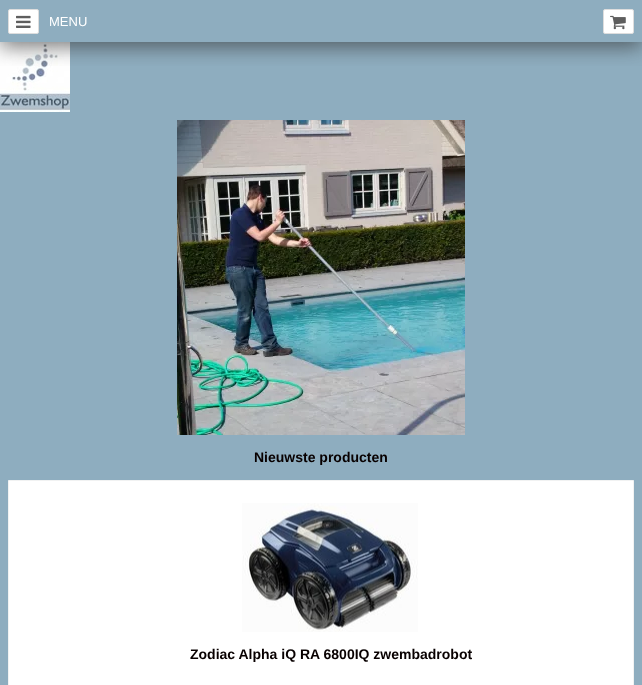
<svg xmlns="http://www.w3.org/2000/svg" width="642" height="685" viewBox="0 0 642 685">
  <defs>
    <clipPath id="clip1"><path d="M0 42h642v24H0z"/></clipPath>
  </defs>
  <rect width="100%" height="100%" fill="#8eadbf"/>
  <image x="0" y="42" width="70" height="70" href="img/3.png"/>
  <g clip-path="url(#clip1)">
    <path d="M0 5h642v42H0z" fill="#323232a6" filter="blur(10px)"/>
  </g>
  <rect x="8.5" y="9.5" width="30" height="24" rx="1.5" fill="#fff" stroke="#ddd"/>
  <image x="16" y="15" width="15" height="13" href="img/1.png"/>
  <rect x="603.5" y="9.5" width="30" height="24" rx="1.5" fill="#fff" stroke="#ddd"/>
  <image x="610" y="15" width="16" height="15" href="img/2.png"/>
  <image x="177" y="120" width="288" height="315" href="img/4.png"/>
  <path d="M8.5 480.5h625v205H8.5z" fill="#fff" stroke="#f1f2f2"/>
  <image x="242" y="503" width="176" height="129" href="img/5.png"/>
  <text x="49" y="26" font-family="Liberation Sans" font-size="13" fill="#fff">MENU</text>
  <g font-family="Liberation Sans" font-size="14" font-weight="bold" fill="#080000">
    <text x="254" y="462">Nieuwste producten</text>
    <text x="190" y="659">Zodiac Alpha iQ RA 6800IQ zwembadrobot</text>
  </g>
</svg>
